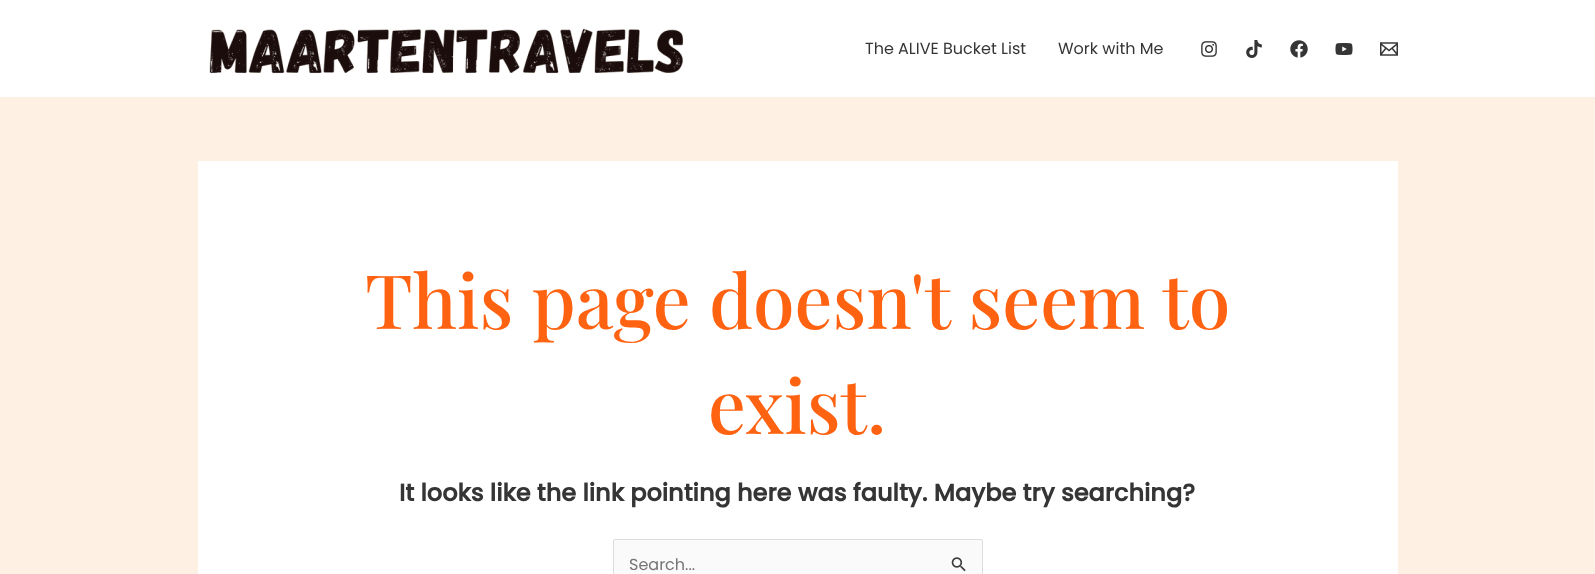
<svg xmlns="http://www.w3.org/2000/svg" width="1595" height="574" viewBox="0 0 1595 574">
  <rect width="100%" height="100%" fill="#fef1e4"/>
  <path d="M0 0h1595v97H0z" fill="#fff"/>
  <image x="209" y="28" width="474" height="46" href="img/1.png"/>
  <image x="1201" y="41" width="16" height="16" href="img/2.png"/>
  <image x="1246" y="40" width="16" height="18" href="img/3.png"/>
  <image x="1290" y="40" width="18" height="18" href="img/4.png"/>
  <image x="1335" y="43" width="18" height="12" href="img/5.png"/>
  <image x="1380" y="42" width="18" height="14" href="img/6.png"/>
  <path d="M198 161h1200v413H198z" fill="#fff"/>
  <rect x="613.5" y="539.5" width="369" height="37" rx="1.5" fill="#fafafa" stroke="#ddd"/>
  <image x="951" y="557" width="15" height="15" href="img/7.png"/>
  <g font-family="Poppins" font-size="16" fill="#353535">
    <text x="865" y="54">The ALIVE Bucket List</text>
    <text x="1058" y="54">Work with Me</text>
  </g>
  <g font-family="Playfair Display" font-size="75" font-weight="500" fill="#ff6210">
    <text x="365" y="329">This page doesn't seem to</text>
    <text x="708" y="434">exist.</text>
  </g>
  <text x="399" y="501" font-family="Poppins" font-size="24" font-weight="bold" fill="#353535">It looks like the link pointing here was faulty. Maybe try searching?</text>
  <text x="629" y="570" font-family="Poppins" font-size="16" fill="#757575">Search...</text>
</svg>
